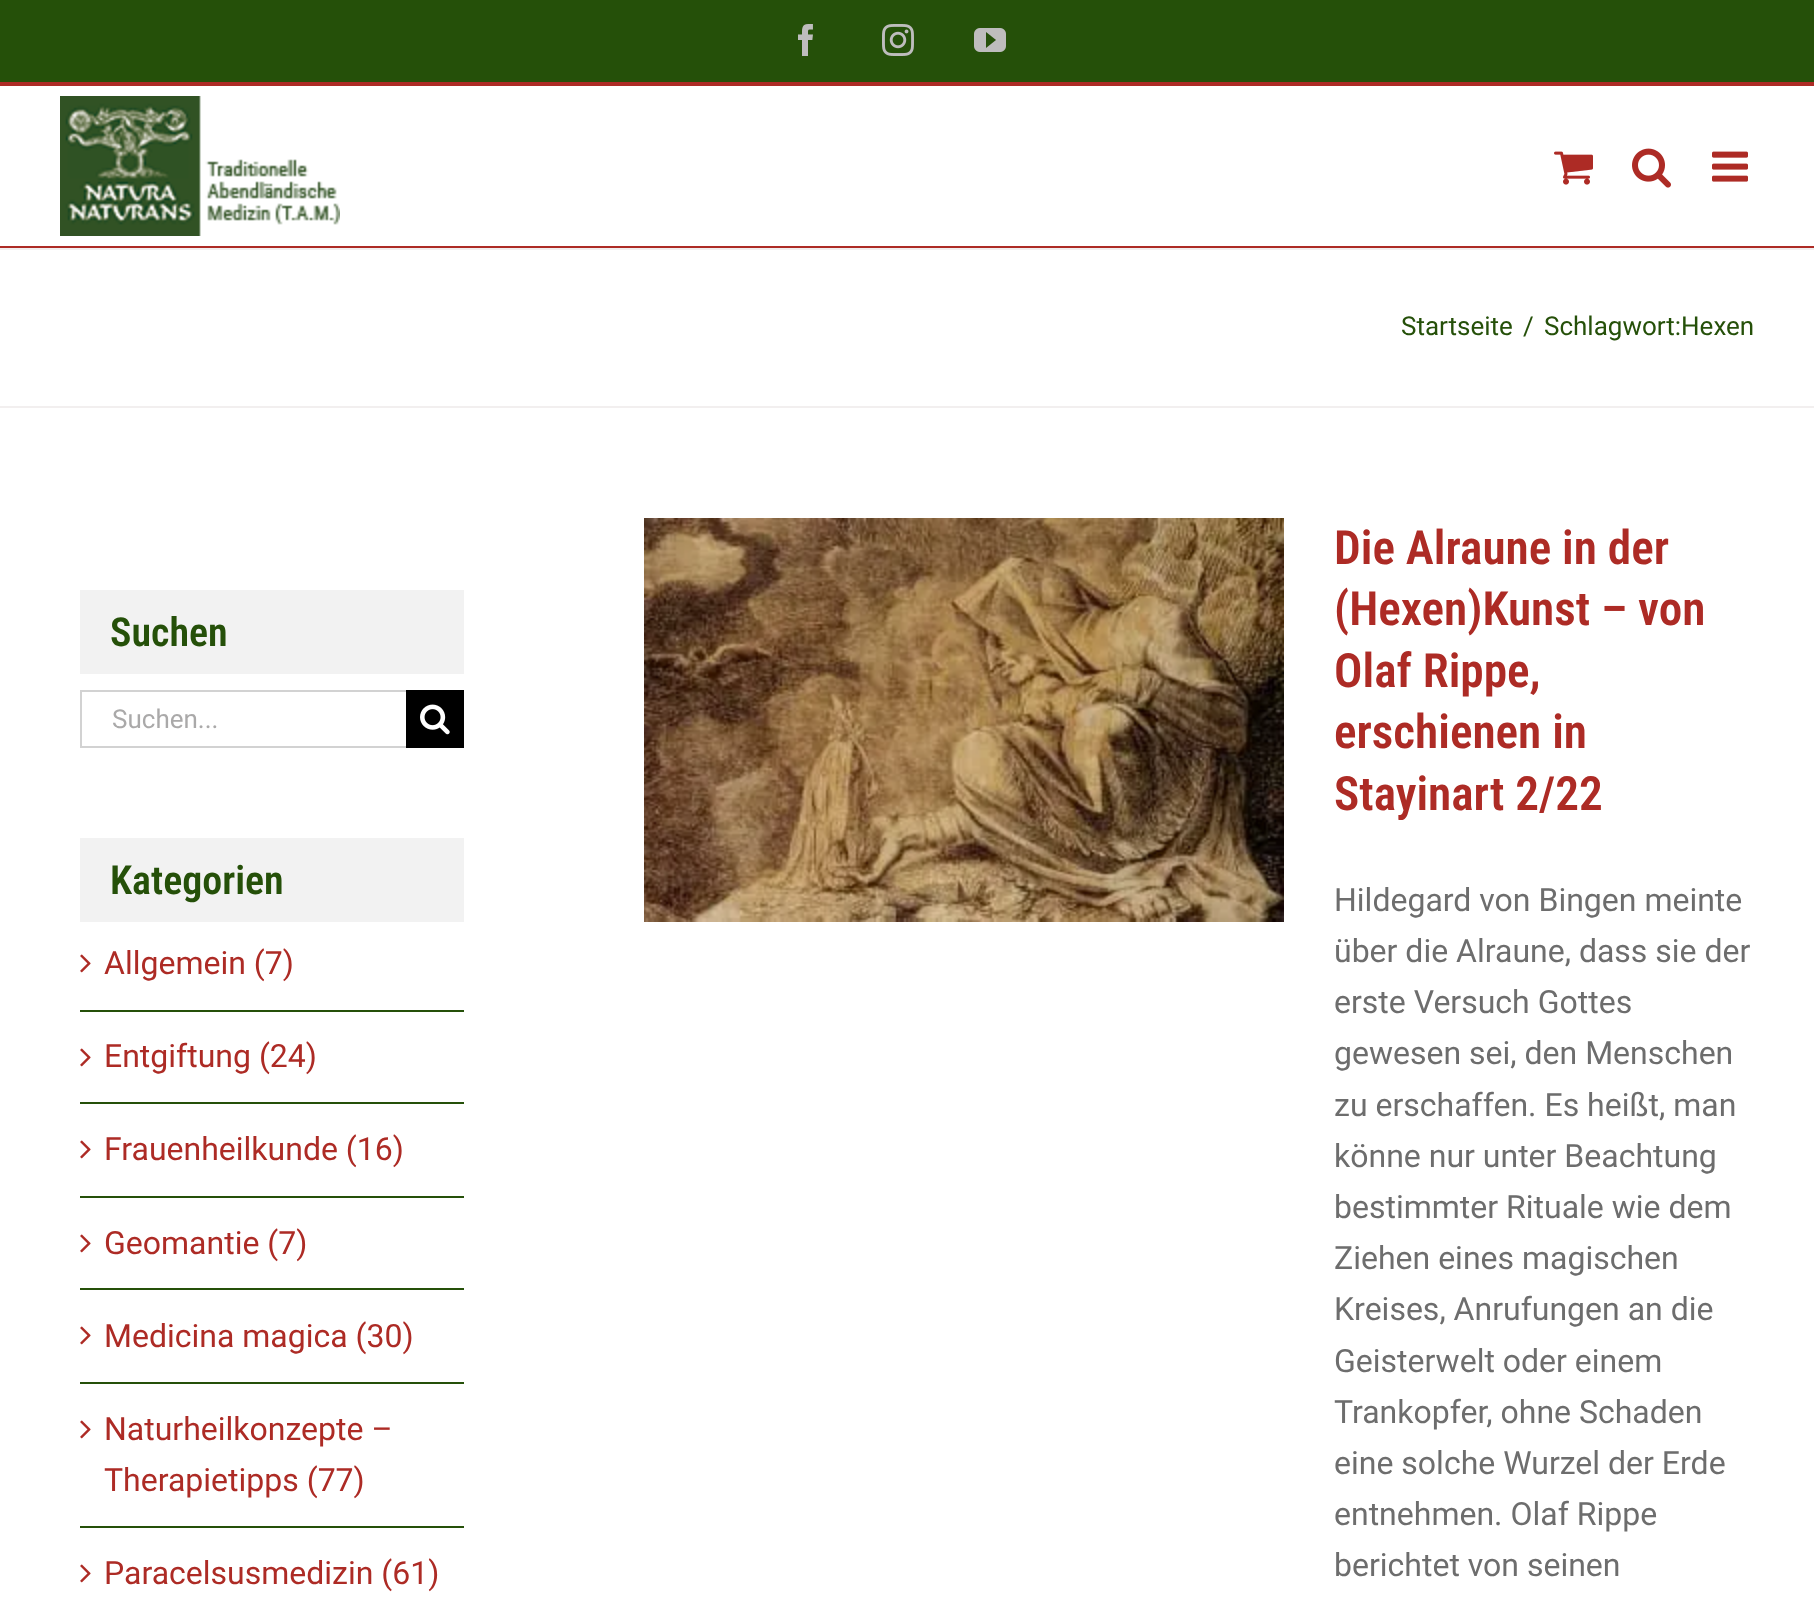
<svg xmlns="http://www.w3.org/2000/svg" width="1814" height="1605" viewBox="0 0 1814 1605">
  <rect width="100%" height="100%" fill="#fff"/>
  <path d="M0 0h1814v82H0z" fill="#255009"/>
  <path d="M0 82h1814v4H0z" fill="#ad2b25"/>
  <image x="798" y="24" width="15" height="32" href="img/1.png"/>
  <image x="882" y="24" width="32" height="32" href="img/2.png"/>
  <image x="974" y="28" width="32" height="24" href="img/3.png"/>
  <path d="M0 246h1814v2H0z" fill="#ad2b25"/>
  <image x="60" y="96" width="280" height="140" href="img/4.png"/>
  <image x="1554" y="151" width="39" height="34" href="img/5.png"/>
  <image x="1632" y="148" width="39" height="40" href="img/6.png"/>
  <image x="1712" y="151" width="36" height="31" href="img/7.png"/>
  <path d="M0 248h1814v2H0z" fill="#f2efef"/>
  <path d="M0 406h1814v2H0z" fill="#f2efef"/>
  <path d="M80 590h384v84H80z" fill="#f2f2f2"/>
  <path d="M80 690h326v2H80z" fill="#d2d2d2"/>
  <path d="M80 746h326v2H80z" fill="#d2d2d2"/>
  <path d="M80 690h2v58H80z" fill="#d2d2d2"/>
  <path d="M406 690h58v58H406z" fill="#000"/>
  <image x="420" y="704" width="30" height="31" href="img/8.png"/>
  <path d="M80 838h384v84H80z" fill="#f2f2f2"/>
  <path d="M80 1010h384v2H80z" fill="#255009"/>
  <image x="80" y="954" width="11" height="19" href="img/9.png"/>
  <path d="M80 1102h384v2H80z" fill="#255009"/>
  <image x="80" y="1048" width="11" height="19" href="img/9.png"/>
  <path d="M80 1196h384v2H80z" fill="#255009"/>
  <image x="80" y="1140" width="11" height="19" href="img/9.png"/>
  <path d="M80 1288h384v2H80z" fill="#255009"/>
  <image x="80" y="1234" width="11" height="19" href="img/9.png"/>
  <path d="M80 1382h384v2H80z" fill="#255009"/>
  <image x="80" y="1326" width="11" height="19" href="img/9.png"/>
  <path d="M80 1526h384v2H80z" fill="#255009"/>
  <image x="80" y="1420" width="11" height="19" href="img/9.png"/>
  <image x="80" y="1564" width="11" height="19" href="img/9.png"/>
  <image x="644" y="518" width="640" height="404" href="img/10.png"/>
  <g font-family="Roboto" font-size="26" fill="#255009">
    <text x="1401" y="335">Startseite</text>
    <text x="1523" y="335">/</text>
    <text x="1544" y="335">Schlagwort:Hexen</text>
  </g>
  <text x="110" y="646" font-family="Roboto Condensed" font-size="40" font-weight="600" fill="#255009">Suchen</text>
  <text x="112" y="728" font-family="Roboto" font-size="26" fill="#aaa9a9">Suchen...</text>
  <text x="110" y="894" font-family="Roboto Condensed" font-size="40" font-weight="600" fill="#255009">Kategorien</text>
  <g font-family="Roboto" font-size="32" fill="#ad2b25">
    <text x="104" y="974">Allgemein (7)</text>
    <text x="104" y="1067">Entgiftung (24)</text>
    <text x="104" y="1160">Frauenheilkunde (16)</text>
    <text x="104" y="1254">Geomantie (7)</text>
    <text x="104" y="1347">Medicina magica (30)</text>
    <text x="104" y="1440">Naturheilkonzepte –</text>
    <text x="104" y="1491">Therapietipps (77)</text>
    <text x="104" y="1584">Paracelsusmedizin (61)</text>
  </g>
  <g font-family="Roboto Condensed" font-size="47.25" font-weight="600" fill="#ad2b25">
    <text x="1334" y="564">Die Alraune in der</text>
    <text x="1334" y="625">(Hexen)Kunst – von</text>
    <text x="1334" y="687">Olaf Rippe,</text>
    <text x="1334" y="748">erschienen in</text>
    <text x="1334" y="810">Stayinart 2/22</text>
  </g>
  <g font-family="Roboto" font-size="32" fill="#6d6d6d">
    <text x="1334" y="911">Hildegard von Bingen meinte</text>
    <text x="1334" y="962">über die Alraune, dass sie der</text>
    <text x="1334" y="1013">erste Versuch Gottes</text>
    <text x="1334" y="1064">gewesen sei, den Menschen</text>
    <text x="1334" y="1116">zu erschaffen. Es heißt, man</text>
    <text x="1334" y="1167">könne nur unter Beachtung</text>
    <text x="1334" y="1218">bestimmter Rituale wie dem</text>
    <text x="1334" y="1269">Ziehen eines magischen</text>
    <text x="1334" y="1320">Kreises, Anrufungen an die</text>
    <text x="1334" y="1372">Geisterwelt oder einem</text>
    <text x="1334" y="1423">Trankopfer, ohne Schaden</text>
    <text x="1334" y="1474">eine solche Wurzel der Erde</text>
    <text x="1334" y="1525">entnehmen. Olaf Rippe</text>
    <text x="1334" y="1576">berichtet von seinen</text>
  </g>
</svg>
